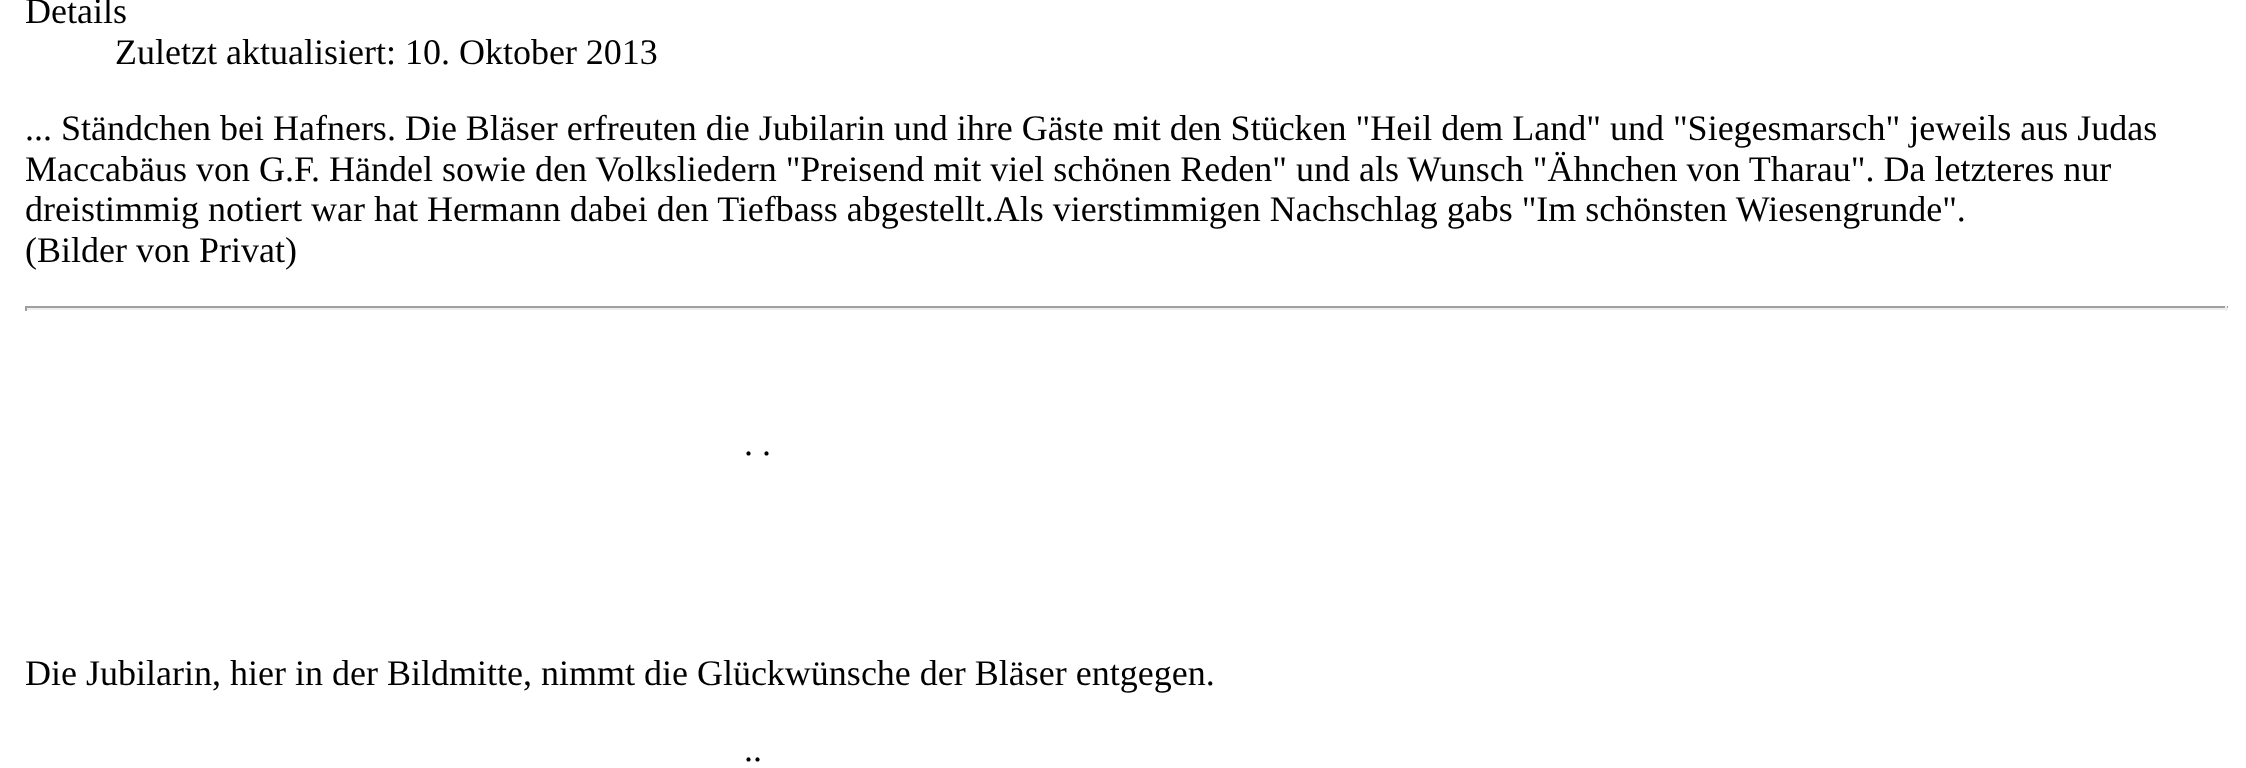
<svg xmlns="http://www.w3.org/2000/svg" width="2246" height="768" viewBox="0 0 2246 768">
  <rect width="100%" height="100%" fill="#fff"/>
  <path d="M25 306h2203v2H25z" fill="#9f9f9f"/>
  <path d="M2225 306h2v5H2225z" fill="#eee"/>
  <path d="M25 308h2203v2H25z" fill="#eee"/>
  <path d="M25 306h2v5H25z" fill="#9f9f9f"/>
  <g font-family="Liberation Serif" font-size="36" fill="#000">
    <text x="25" y="23">Details</text>
    <text x="115" y="64">Zuletzt aktualisiert: 10. Oktober 2013</text>
    <text x="25" y="140">... Ständchen bei Hafners. Die Bläser erfreuten die Jubilarin und ihre Gäste mit den Stücken "Heil dem Land" und "Siegesmarsch" jeweils aus Judas</text>
    <text x="25" y="181">Maccabäus von G.F. Händel sowie den Volksliedern "Preisend mit viel schönen Reden" und als Wunsch "Ähnchen von Tharau". Da letzteres nur</text>
    <text x="25" y="221">dreistimmig notiert war hat Hermann dabei den Tiefbass abgestellt.Als vierstimmigen Nachschlag gabs "Im schönsten Wiesengrunde".</text>
    <text x="25" y="262">(Bilder von Privat)</text>
    <text x="744" y="455">. .</text>
    <text x="25" y="685">Die Jubilarin, hier in der Bildmitte, nimmt die Glückwünsche der Bläser entgegen.</text>
    <text x="744" y="761">..</text>
  </g>
</svg>
